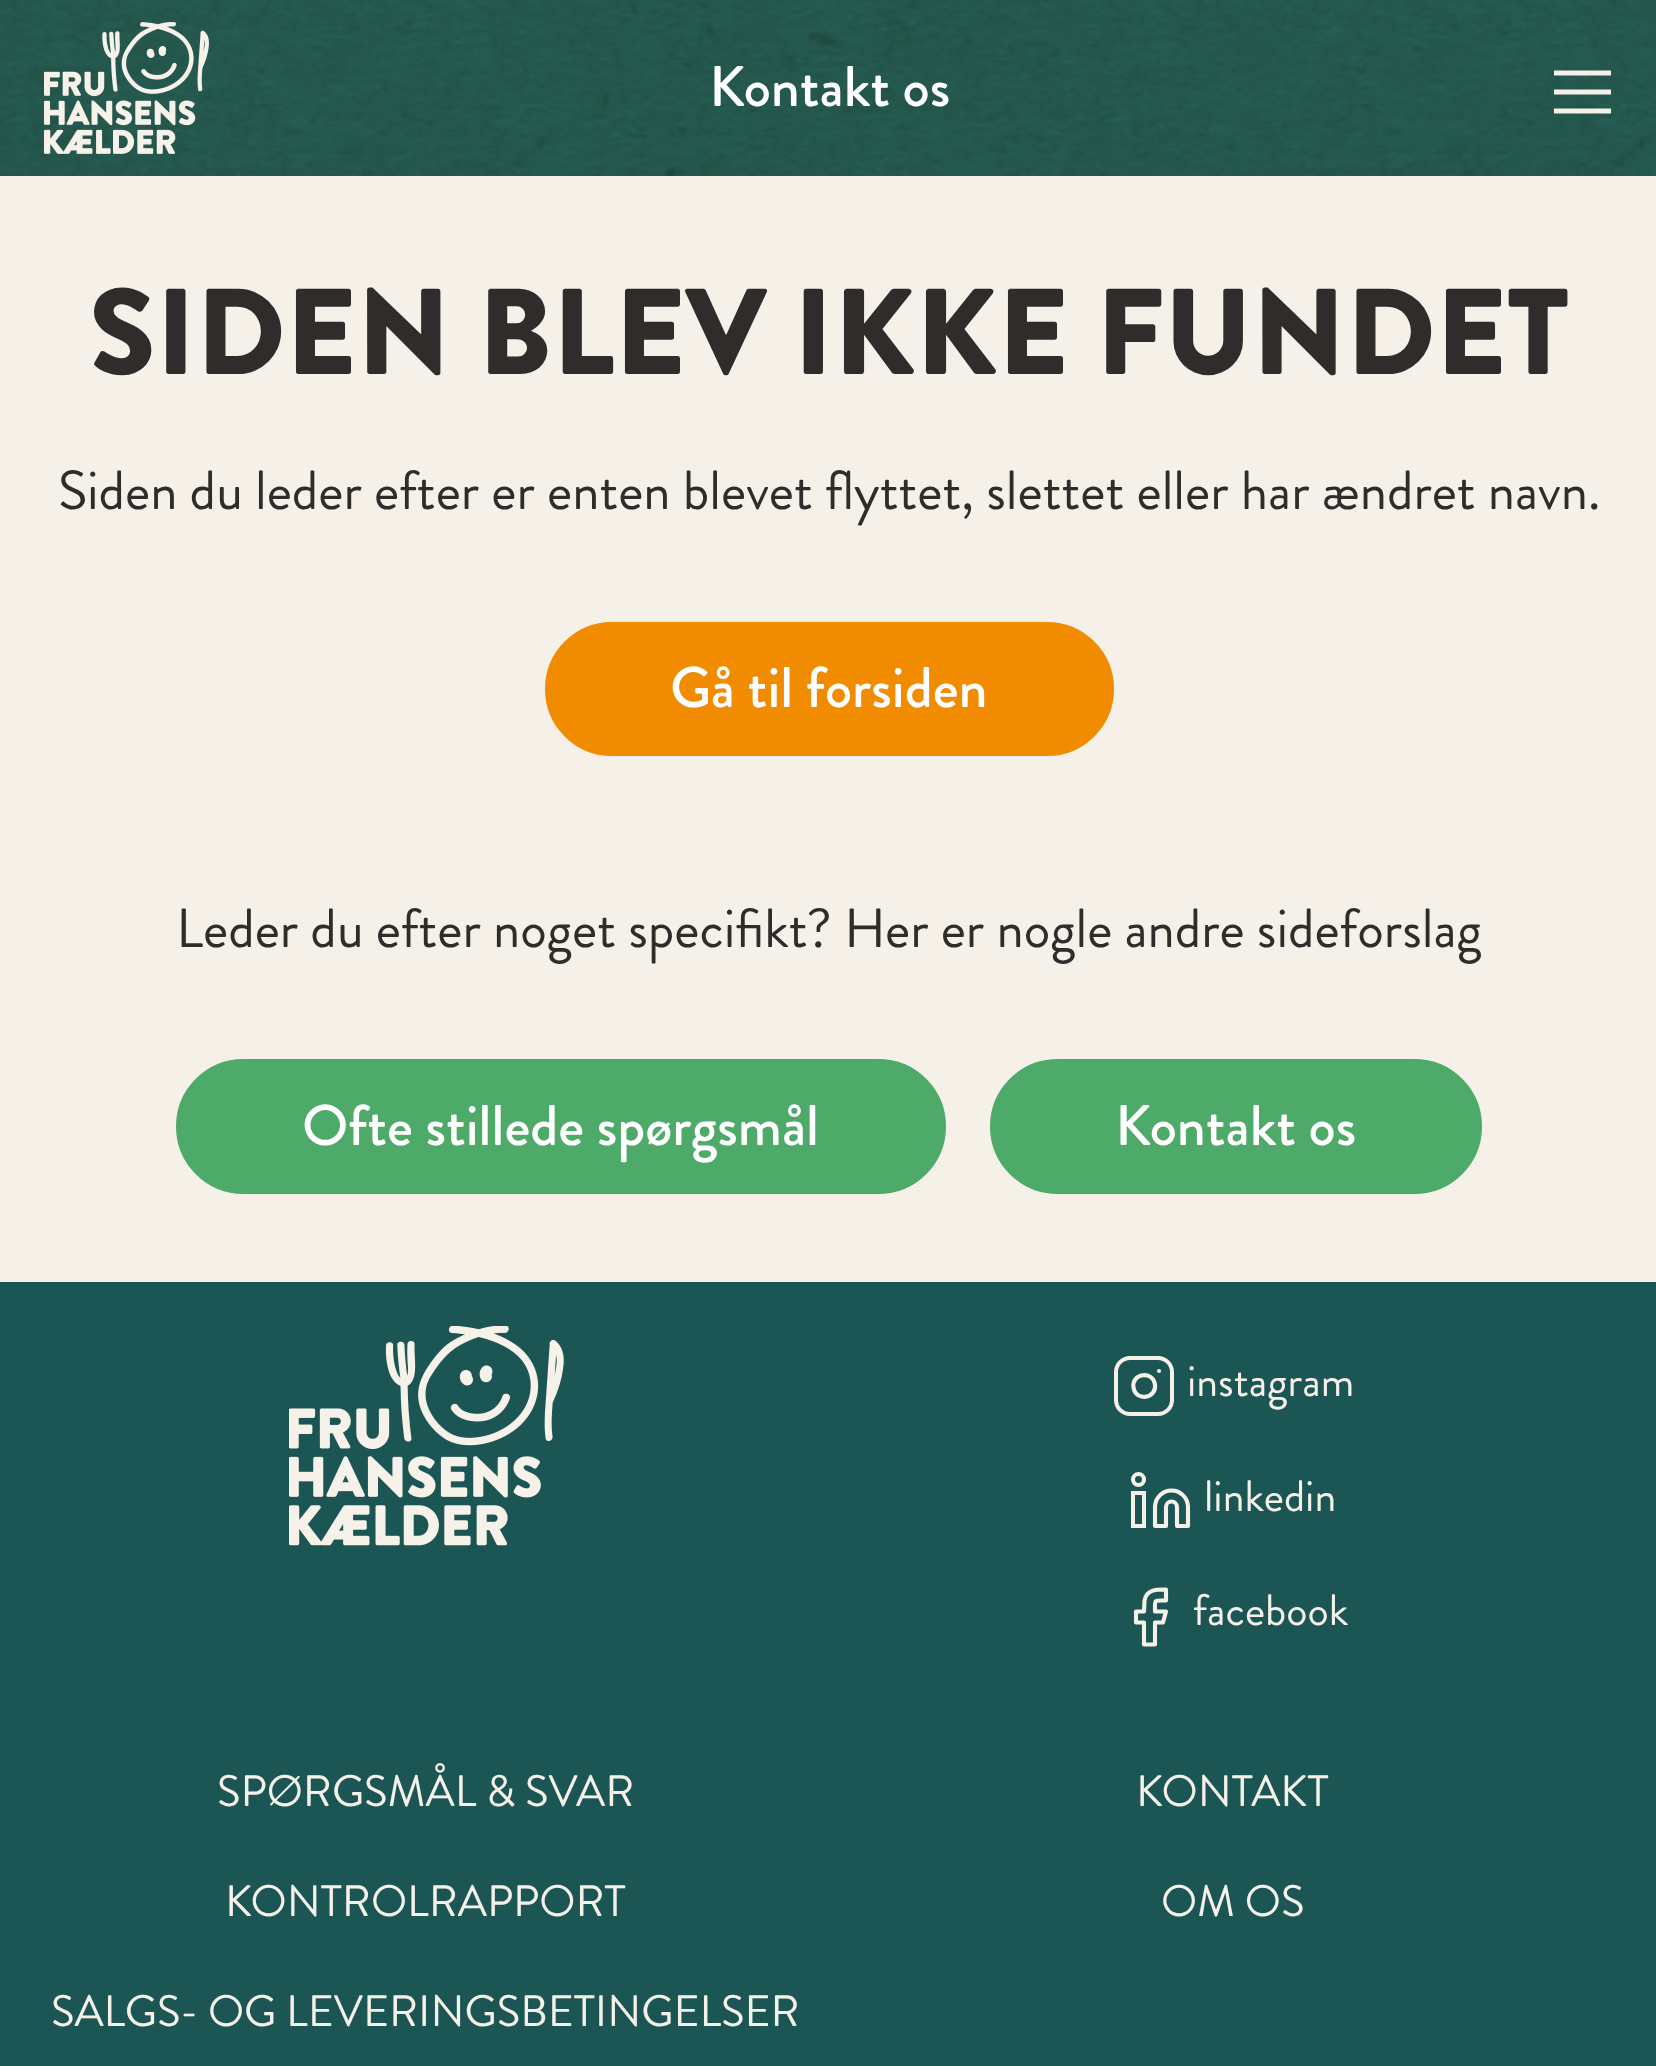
<svg xmlns="http://www.w3.org/2000/svg" width="1656" height="2066" viewBox="0 0 1656 2066">
  <rect width="100%" height="100%" fill="#f5f1e9"/>
  <image x="0" y="0" width="1656" height="176" href="img/1.png"/>
  <image x="44" y="22" width="165" height="132" href="img/2.png"/>
  <path d="M1554 92H1611M1554 73H1611M1554 111H1611" fill="none" stroke="#f5f1e9" stroke-width="4.8"/>
  <rect x="546.5" y="623.5" width="566" height="131" rx="65.5" fill="#f18b00" stroke="#f18b00" stroke-width="3"/>
  <rect x="177.5" y="1060.5" width="767" height="132" rx="66" fill="#4daa68" stroke="#4daa68" stroke-width="3"/>
  <rect x="991.5" y="1060.5" width="489" height="132" rx="66" fill="#4daa68" stroke="#4daa68" stroke-width="3"/>
  <path d="M0 1282h1656v784H0z" fill="#1c5654"/>
  <image x="289" y="1326" width="275" height="220" href="img/3.png"/>
  <rect x="1116" y="1358" width="56" height="56" rx="14" fill="none" stroke="#f5f1e9" stroke-width="4"/>
  <path d="M1155 1384.5C1157 1398.5 1135.5 1402 1133.5 1387.5C1131 1373.5 1153 1370 1155 1384.5ZM1159 1371H1159" fill="none" stroke="#f5f1e9" stroke-width="4.1" stroke-linecap="round" stroke-linejoin="round"/>
  <path d="M1171.5 1490.5C1180.5 1490.5 1188 1498 1188 1507V1526H1177V1507C1177 1504 1174.5 1501.5 1171.5 1501.5C1168.5 1501.5 1166 1504 1166 1507V1526H1155V1507C1155 1498 1162.5 1490.5 1171.5 1490.5Z" fill="none" stroke="#f5f1e9" stroke-width="4.1" stroke-linecap="round" stroke-linejoin="round"/>
  <path d="M1133 1493h11v33H1133z" fill="none" stroke="#f5f1e9" stroke-width="4"/>
  <circle cx="1138.5" cy="1479.5" r="5.5" fill="none" stroke="#f5f1e9" stroke-width="4.1"/>
  <path d="M1166 1589.5C1157 1589.5 1146.5 1589 1144.5 1600.5L1144 1611.5H1136V1622.5H1144V1644.5H1155V1622.5H1163L1166 1611.5H1155C1155 1599 1153.5 1600.5 1166 1600.5Z" fill="none" stroke="#f5f1e9" stroke-width="4.1" stroke-linecap="round" stroke-linejoin="round"/>
  <text x="709" y="106" font-family="Brandon Grotesque" font-size="57.25" font-weight="500" fill="#fff">Kontakt os</text>
  <text x="89" y="374" font-family="Brandon Grotesque" font-size="121.75" font-weight="900" fill="#2e2d2b">SIDEN BLEV IKKE FUNDET</text>
  <text x="58" y="509" font-family="Brandon Grotesque" font-size="55" fill="#2e2d2b">Siden du leder efter er enten blevet flyttet, slettet eller har ændret navn.</text>
  <text x="670" y="707" font-family="Brandon Grotesque" font-size="57.25" font-weight="500" fill="#fff">Gå til forsiden</text>
  <text x="176" y="947" font-family="Brandon Grotesque" font-size="55" fill="#2e2d2b">Leder du efter noget specifikt? Her er nogle andre sideforslag</text>
  <g font-family="Brandon Grotesque" font-size="57.25" font-weight="500" fill="#fff">
    <text x="302" y="1145">Ofte stillede spørgsmål</text>
    <text x="1115" y="1145">Kontakt os</text>
  </g>
  <g font-family="Brandon Grotesque" font-size="44" fill="#f5f1e9">
    <text x="1187" y="1396">instagram</text>
    <text x="1204" y="1511">linkedin</text>
    <text x="1193" y="1625">facebook</text>
    <text x="217" y="1806">SPØRGSMÅL &amp; SVAR</text>
    <text x="225" y="1916">KONTROLRAPPORT</text>
    <text x="51" y="2026">SALGS- OG LEVERINGSBETINGELSER</text>
    <text x="1136" y="1806">KONTAKT</text>
    <text x="1161" y="1916">OM OS</text>
  </g>
</svg>
